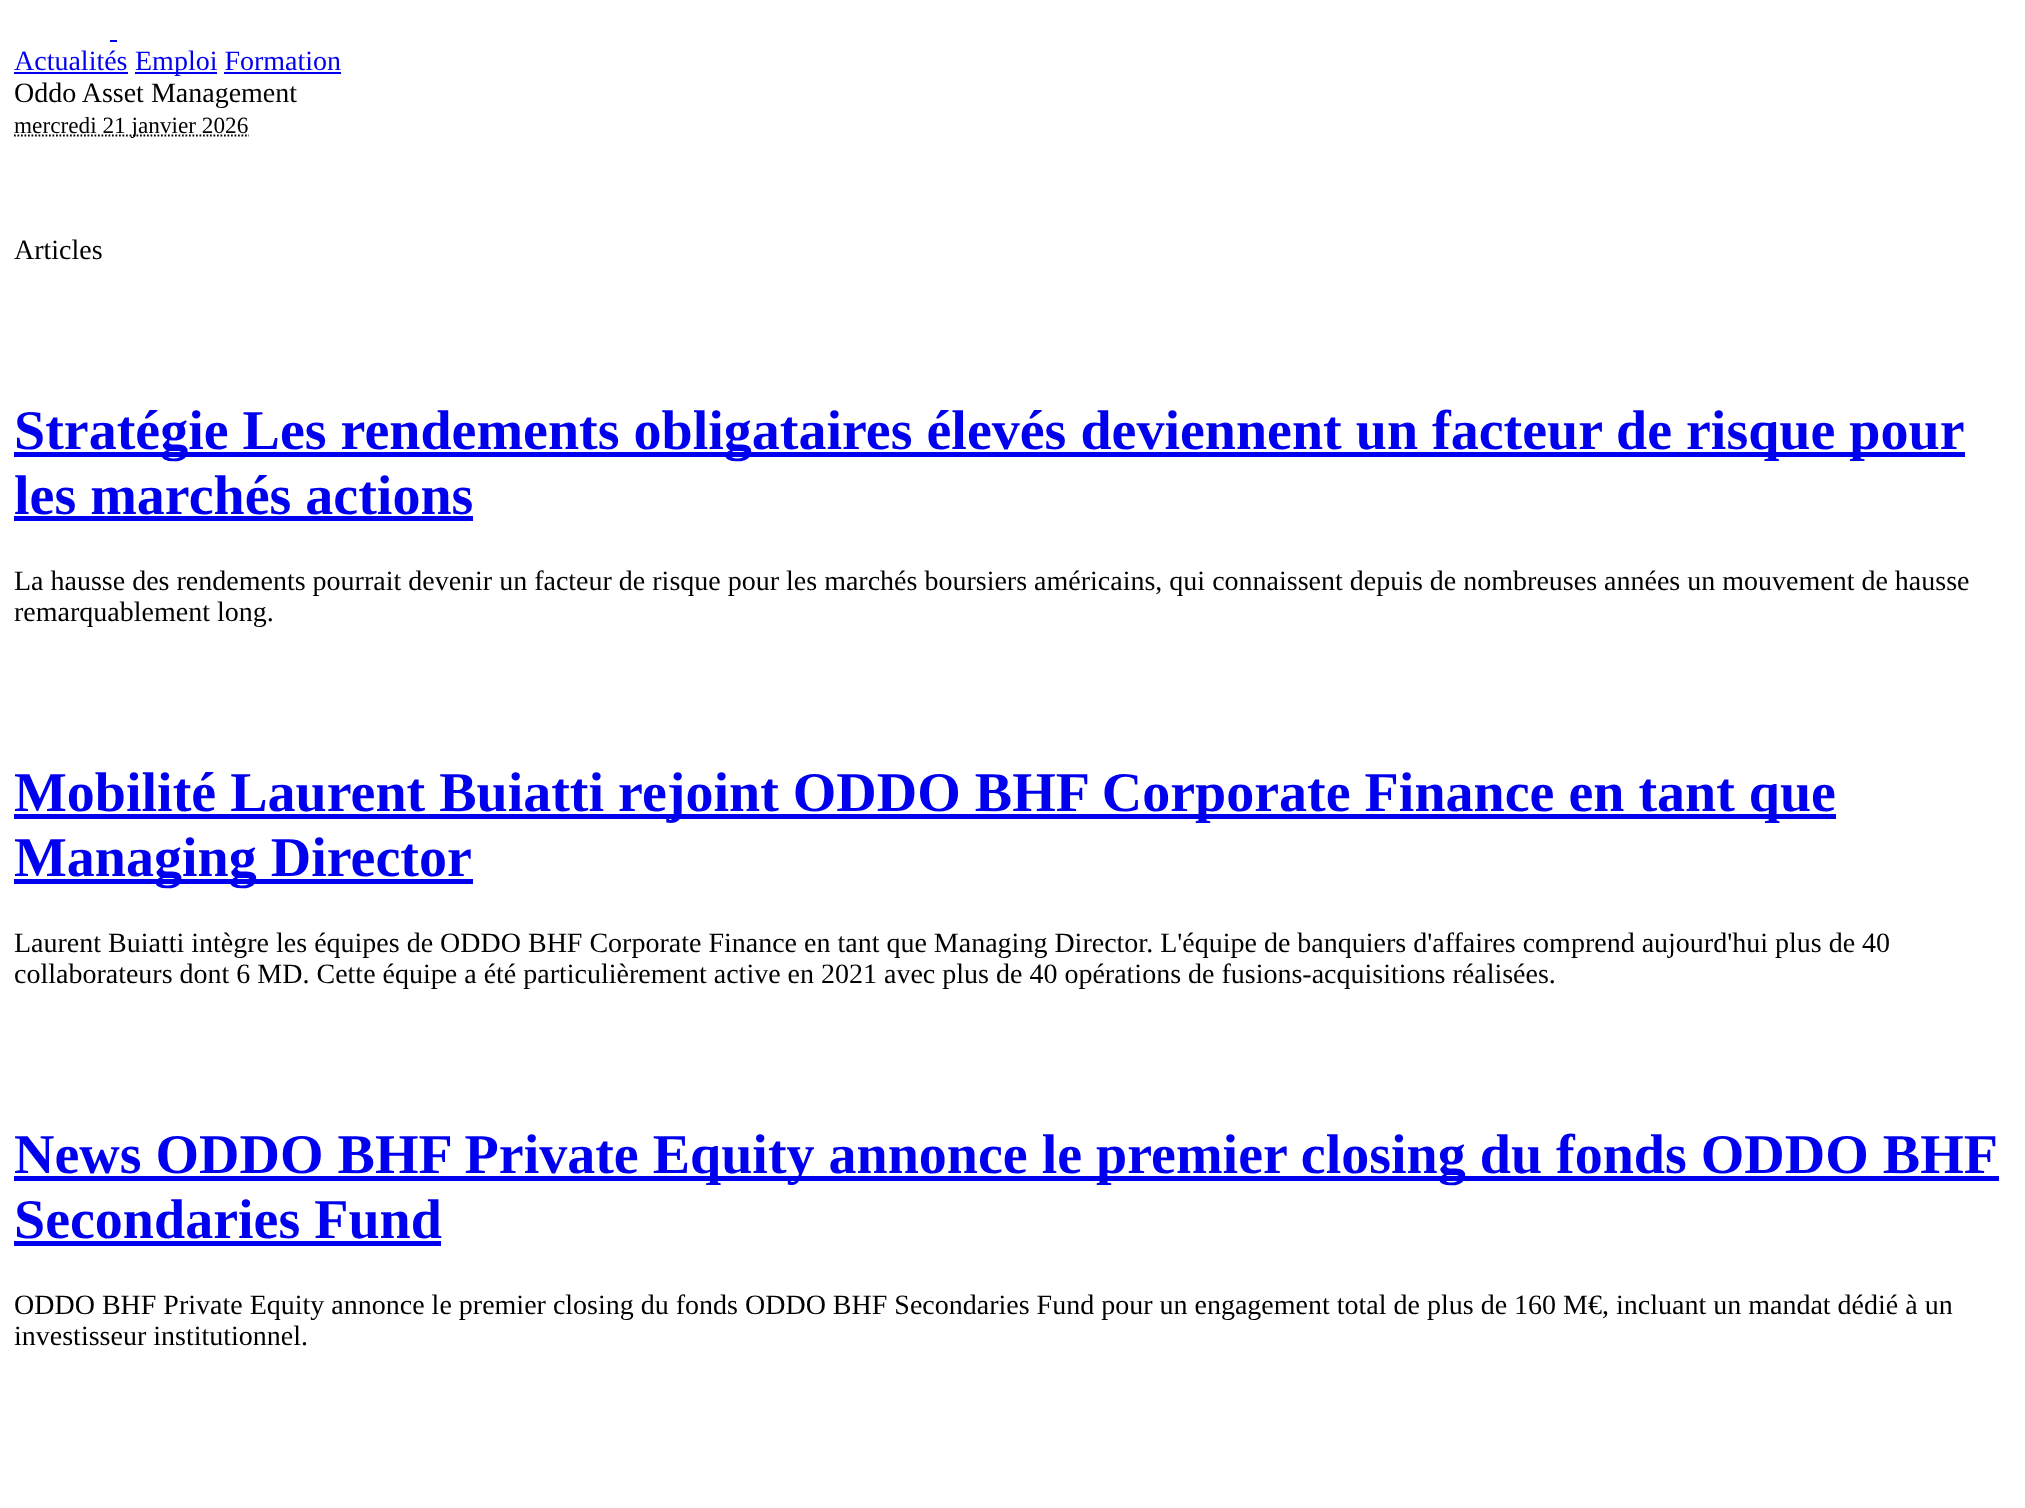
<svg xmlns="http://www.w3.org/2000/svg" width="2025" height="1508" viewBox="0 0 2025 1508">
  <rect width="100%" height="100%" fill="#fff"/>
  <path d="M110 40h7v2H110z" fill="#00e"/>
  <path d="M14 72h114v2H14z" fill="#00e"/>
  <path d="M135 72h82v2H135z" fill="#00e"/>
  <path d="M224 72h117v2H224z" fill="#00e"/>
  <path d="M14 135.5H249" fill="none" stroke="#000" stroke-width="1.8" stroke-dasharray="1.75 1.75"/>
  <path d="M14 452h1951v5H14z" fill="#00e"/>
  <path d="M14 516h459v5H14z" fill="#00e"/>
  <path d="M14 814h1822v5H14z" fill="#00e"/>
  <path d="M14 879h459v5H14z" fill="#00e"/>
  <path d="M14 1176h1985v5H14z" fill="#00e"/>
  <path d="M14 1241h427v5H14z" fill="#00e"/>
  <g font-family="Liberation Serif" font-size="28" fill="#00e">
    <text x="14" y="70">Actualités</text>
    <text x="135" y="70">Emploi Formation</text>
  </g>
  <text x="14" y="102" font-family="Liberation Serif" font-size="28" fill="#000">Oddo Asset Management</text>
  <text x="14" y="133" font-family="Liberation Serif" font-size="23.25" fill="#000">mercredi 21 janvier 2026</text>
  <text x="14" y="259" font-family="Liberation Serif" font-size="28" fill="#000">Articles</text>
  <g font-family="Liberation Serif" font-size="56" font-weight="bold" fill="#00e">
    <text x="14" y="449">Stratégie Les rendements obligataires élevés deviennent un facteur de risque pour</text>
    <text x="14" y="514">les marchés actions</text>
  </g>
  <g font-family="Liberation Serif" font-size="28" fill="#000">
    <text x="14" y="590">La hausse des rendements pourrait devenir un facteur de risque pour les marchés boursiers américains, qui connaissent depuis de nombreuses années un mouvement de hausse</text>
    <text x="14" y="621">remarquablement long.</text>
  </g>
  <g font-family="Liberation Serif" font-size="56" font-weight="bold" fill="#00e">
    <text x="14" y="811">Mobilité Laurent Buiatti rejoint ODDO BHF Corporate Finance en tant que</text>
    <text x="14" y="876">Managing Director</text>
  </g>
  <g font-family="Liberation Serif" font-size="28" fill="#000">
    <text x="14" y="952">Laurent Buiatti intègre les équipes de ODDO BHF Corporate Finance en tant que Managing Director. L'équipe de banquiers d'affaires comprend aujourd'hui plus de 40</text>
    <text x="14" y="983">collaborateurs dont 6 MD. Cette équipe a été particulièrement active en 2021 avec plus de 40 opérations de fusions-acquisitions réalisées.</text>
  </g>
  <g font-family="Liberation Serif" font-size="56" font-weight="bold" fill="#00e">
    <text x="14" y="1173">News ODDO BHF Private Equity annonce le premier closing du fonds ODDO BHF</text>
    <text x="14" y="1238">Secondaries Fund</text>
  </g>
  <g font-family="Liberation Serif" font-size="28" fill="#000">
    <text x="14" y="1314">ODDO BHF Private Equity annonce le premier closing du fonds ODDO BHF Secondaries Fund pour un engagement total de plus de 160 M€, incluant un mandat dédié à un</text>
    <text x="14" y="1345">investisseur institutionnel.</text>
  </g>
</svg>
